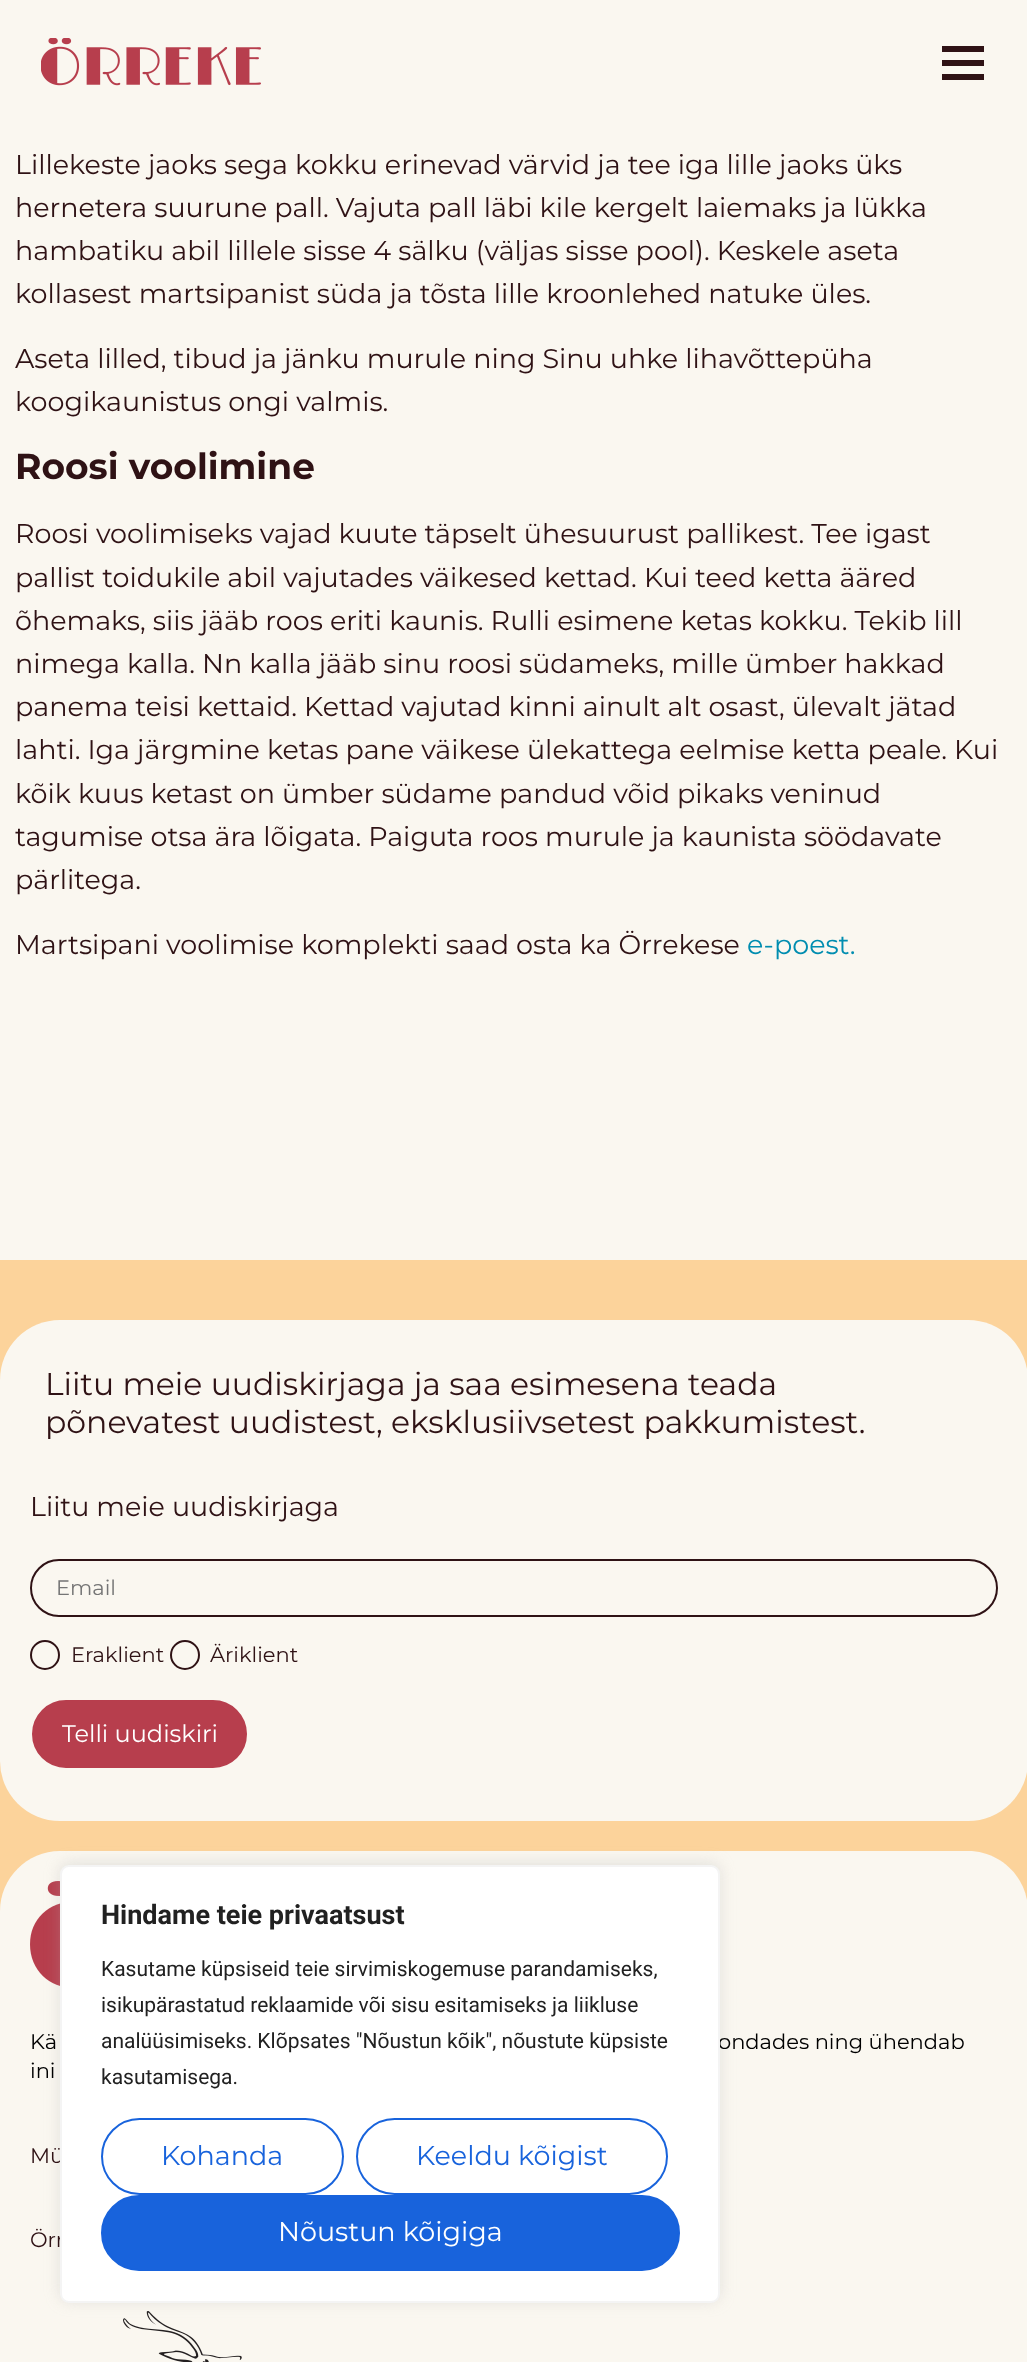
<svg xmlns="http://www.w3.org/2000/svg" width="1027" height="2362" viewBox="0 0 1027 2362">
  <rect width="100%" height="100%" fill="#faf7f0"/>
  <image x="41" y="38" width="220" height="48" href="img/1.png"/>
  <path d="M984 46V52H942V46ZM942 66H984V60H942ZM942 80H984V74H942Z" fill="#2f1215"/>
  <path d="M0 1260h1027v651H0z" fill="#fcd39b"/>
  <rect y="1320" width="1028" height="501" rx="60" fill="#faf7f0"/>
  <rect x="31" y="1560" width="966" height="56" rx="28" fill="none" stroke="#2f1215" stroke-width="2"/>
  <circle cx="45" cy="1655" r="14" fill="none" stroke="#2f1215" stroke-width="2"/>
  <circle cx="185" cy="1655" r="14" fill="none" stroke="#2f1215" stroke-width="2"/>
  <rect x="31" y="1699" width="217" height="70" rx="35" fill="#b73e4d" stroke="#faf7f0" stroke-width="2"/>
  <path d="M60 1851H968C1001 1851 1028 1878 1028 1911V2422H0V1911C0 1878 27 1851 60 1851Z" fill="#faf7f0"/>
  <image x="30" y="1881" width="30" height="105" href="img/2.png"/>
  <image x="123" y="2311" width="119" height="51" href="img/3.png"/>
  <rect x="60" y="1863" width="660" height="438" rx="9" fill="#acabab4d" filter="blur(7.5px)"/>
  <g font-family="Montserrat" font-size="27" fill="#2f1215">
    <text x="15" y="174">Lillekeste jaoks sega kokku erinevad värvid ja tee iga lille jaoks üks</text>
    <text x="15" y="217">hernetera suurune pall. Vajuta pall läbi kile kergelt laiemaks ja lükka</text>
    <text x="15" y="260">hambatiku abil lillele sisse 4 sälku (väljas sisse pool). Keskele aseta</text>
    <text x="15" y="303">kollasest martsipanist süda ja tõsta lille kroonlehed natuke üles.</text>
    <text x="15" y="368">Aseta lilled, tibud ja jänku murule ning Sinu uhke lihavõttepüha</text>
    <text x="15" y="411">koogikaunistus ongi valmis.</text>
  </g>
  <text x="15" y="479" font-family="Montserrat" font-size="36" font-weight="bold" fill="#2f1215">Roosi voolimine</text>
  <g font-family="Montserrat" font-size="27" fill="#2f1215">
    <text x="15" y="543">Roosi voolimiseks vajad kuute täpselt ühesuurust pallikest. Tee igast</text>
    <text x="15" y="587">pallist toidukile abil vajutades väikesed kettad. Kui teed ketta ääred</text>
    <text x="15" y="630">õhemaks, siis jääb roos eriti kaunis. Rulli esimene ketas kokku. Tekib lill</text>
    <text x="15" y="673">nimega kalla. Nn kalla jääb sinu roosi südameks, mille ümber hakkad</text>
    <text x="15" y="716">panema teisi kettaid. Kettad vajutad kinni ainult alt osast, ülevalt jätad</text>
    <text x="15" y="759">lahti. Iga järgmine ketas pane väikese ülekattega eelmise ketta peale. Kui</text>
    <text x="15" y="803">kõik kuus ketast on ümber südame pandud võid pikaks veninud</text>
    <text x="15" y="846">tagumise otsa ära lõigata. Paiguta roos murule ja kaunista söödavate</text>
    <text x="15" y="889">pärlitega.</text>
    <text x="15" y="954">Martsipani voolimise komplekti saad osta ka Örrekese</text>
  </g>
  <text x="747" y="954" font-family="Montserrat" font-size="27" fill="#008db0">e-poest.</text>
  <g font-family="Montserrat" font-size="31.5" fill="#2f1215">
    <text x="45" y="1395">Liitu meie uudiskirjaga ja saa esimesena teada</text>
    <text x="45" y="1433">põnevatest uudistest, eksklusiivsetest pakkumistest.</text>
  </g>
  <text x="30" y="1516" font-family="Montserrat" font-size="27" fill="#2f1215">Liitu meie uudiskirjaga</text>
  <text x="56" y="1595" font-family="Montserrat" font-size="21" fill="#757575">Email</text>
  <g font-family="Montserrat" font-size="21" fill="#2f1215">
    <text x="71" y="1662">Eraklient</text>
    <text x="210" y="1662">Äriklient</text>
  </g>
  <text x="62" y="1742" font-family="Montserrat" font-size="24" fill="#fff">Telli uudiskiri</text>
  <g font-family="Montserrat" font-size="21" fill="#000">
    <text x="30" y="2049">Kä</text>
    <text x="718" y="2049">ondades ning ühendab</text>
    <text x="30" y="2078">ini</text>
  </g>
  <g font-family="Montserrat" font-size="21" fill="#2f1215">
    <text x="30" y="2163">Mü</text>
    <text x="30" y="2247">Örr</text>
  </g>
  <rect x="61" y="1866" width="658" height="436" rx="8" fill="#fff" stroke="#f4f4f4" stroke-width="2"/>
  <text x="101" y="1924" font-family="Roboto" font-size="27" font-weight="bold" fill="#212121">Hindame teie privaatsust</text>
  <g font-family="Roboto" font-size="21" fill="#212121">
    <text x="101" y="1976">Kasutame küpsiseid teie sirvimiskogemuse parandamiseks,</text>
    <text x="101" y="2012">isikupärastatud reklaamide või sisu esitamiseks ja liikluse</text>
    <text x="101" y="2048">analüüsimiseks. Klõpsates "Nõustun kõik", nõustute küpsiste</text>
    <text x="101" y="2084">kasutamisega.</text>
  </g>
  <rect x="102" y="2119" width="241" height="75" rx="37.5" fill="none" stroke="#1863dc" stroke-width="2"/>
  <text x="161" y="2165" font-family="Montserrat" font-size="27" fill="#1863dc">Kohanda</text>
  <rect x="357" y="2119" width="310" height="75" rx="37.5" fill="none" stroke="#1863dc" stroke-width="2"/>
  <text x="416" y="2165" font-family="Montserrat" font-size="27" fill="#1863dc">Keeldu kõigist</text>
  <rect x="102" y="2196" width="577" height="74" rx="37" fill="#1863dc" stroke="#1863dc" stroke-width="2"/>
  <text x="278" y="2241" font-family="Montserrat" font-size="27" fill="#fff">Nõustun kõigiga</text>
</svg>
